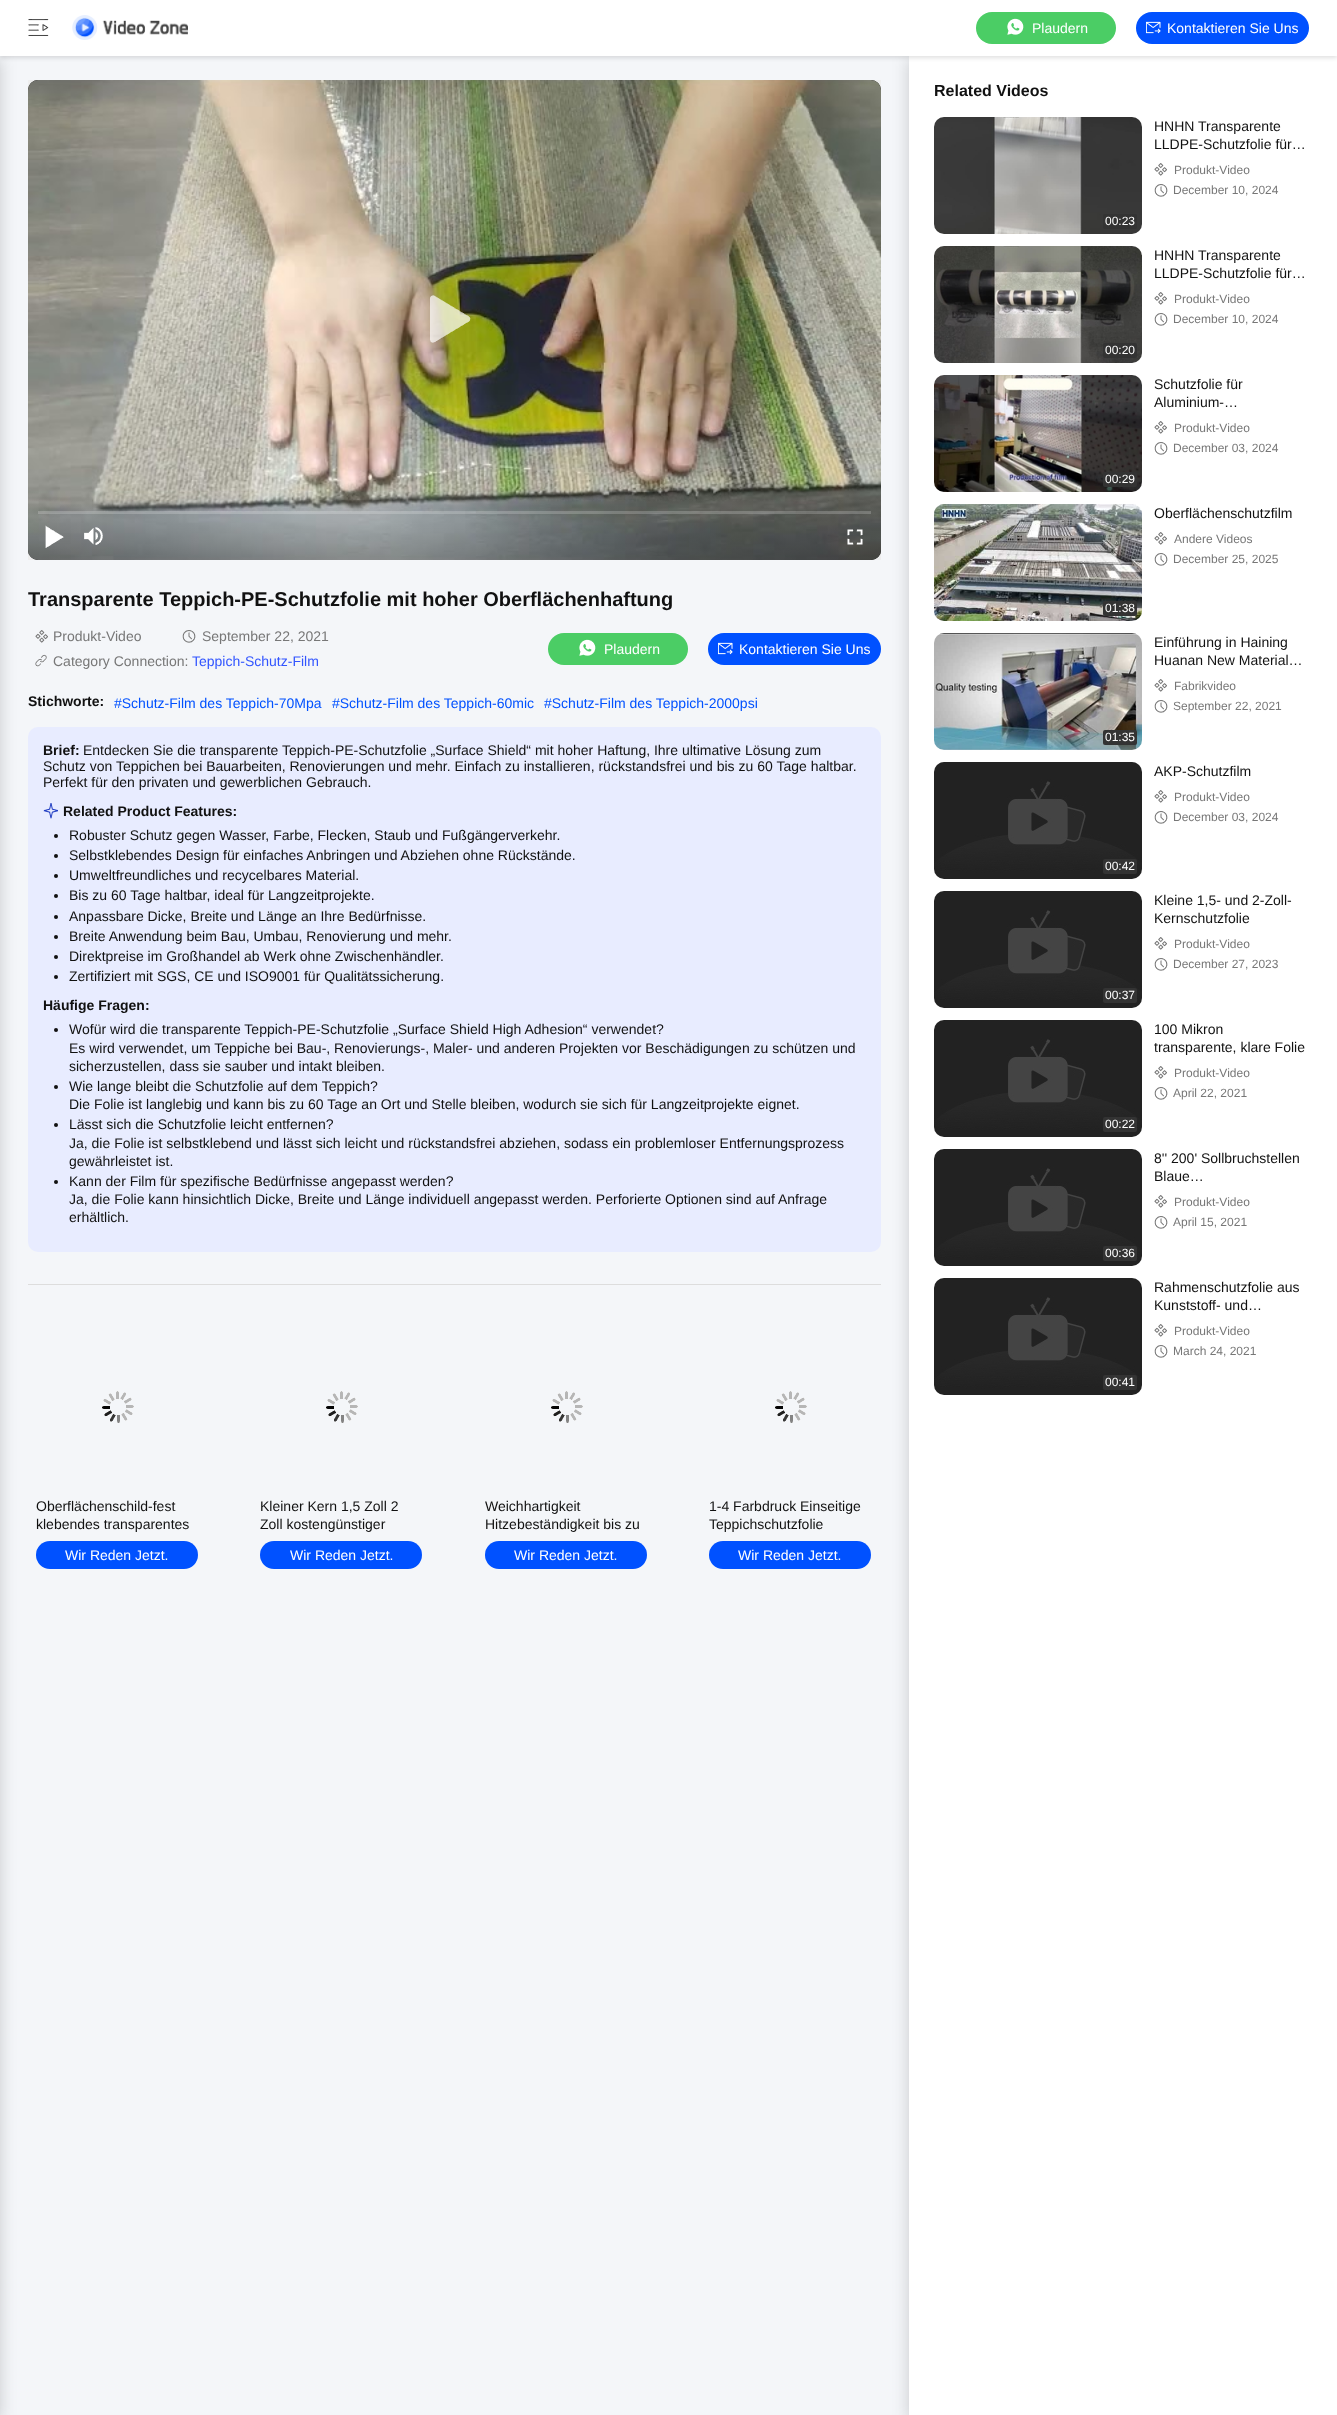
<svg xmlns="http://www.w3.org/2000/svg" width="1337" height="2415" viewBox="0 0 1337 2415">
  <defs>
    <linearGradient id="g1" gradientUnits="userSpaceOnUse" x1="455" y1="560" x2="455" y2="490"><stop offset="0.05" stop-color="#0e0e0d" stop-opacity="0.3"/><stop offset="0.6" stop-color="#0e0e0e" stop-opacity="0.05"/><stop offset="1" stop-color="#0e0e0e" stop-opacity="0"/></linearGradient>
  </defs>
  <rect width="100%" height="100%" fill="#f4f6f9"/>
  <path d="M908 59h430v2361H908z" fill="#00000029" filter="blur(8px)"/>
  <path d="M909 56h428v2359H909z" fill="#fff"/>
  <path d="M0 2h1337v56H0z" fill="#0000001f" filter="blur(2px)"/>
  <path d="M-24 59h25v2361H-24z" fill="#00000029" filter="blur(8px)"/>
  <path d="M0 0h1337v56H0z" fill="#fff"/>
  <image x="28" y="19" width="21" height="17" href="img/1.png"/>
  <image x="72" y="15" width="116" height="25" href="img/2.png"/>
  <rect x="976" y="12" width="140" height="32" rx="16" fill="#4bcd65"/>
  <image x="1007" y="18" width="17" height="17" href="img/3.png"/>
  <rect x="1136" y="12" width="173" height="32" rx="16" fill="#0051ff"/>
  <image x="1146" y="21" width="15" height="13" href="img/4.png"/>
  <path d="M28 1284h853v1H28z" fill="#ddd"/>
  <path d="M28 80h853v480H28z" fill="#eee"/>
  <rect x="28" y="80" width="853" height="480" rx="10" fill="#000"/>
  <image x="28" y="80" width="853" height="480" href="img/5.png"/>
  <image x="430" y="295" width="41" height="48" href="img/6.png"/>
  <path d="M28 490H881V550C881 555.5 876.5 560 871 560H38C32.5 560 28 555.5 28 550Z" fill="url(#g1)"/>
  <path d="M38 511h833v3H38z" fill="#ffffff33"/>
  <image x="45" y="525" width="19" height="23" href="img/7.png"/>
  <image x="84" y="527" width="19" height="18" href="img/8.png"/>
  <image x="847" y="529" width="16" height="16" href="img/9.png"/>
  <image x="35" y="630" width="13" height="13" href="img/10.png"/>
  <image x="182" y="630" width="14" height="13" href="img/11.png"/>
  <image x="35" y="654" width="12" height="13" href="img/12.png"/>
  <rect x="548" y="633" width="140" height="32" rx="16" fill="#4bcd65"/>
  <image x="579" y="639" width="17" height="17" href="img/3.png"/>
  <rect x="708" y="633" width="173" height="32" rx="16" fill="#0051ff"/>
  <image x="718" y="642" width="15" height="13" href="img/4.png"/>
  <rect x="28" y="727" width="853" height="525" rx="10" fill="#e8ecff"/>
  <image x="43" y="803" width="15" height="16" href="img/13.png"/>
  <circle cx="56" cy="836" r="2" fill="#111"/>
  <circle cx="56" cy="856" r="2" fill="#111"/>
  <circle cx="56" cy="876" r="2" fill="#111"/>
  <circle cx="56" cy="896" r="2" fill="#111"/>
  <circle cx="56" cy="917" r="2" fill="#111"/>
  <circle cx="56" cy="937" r="2" fill="#111"/>
  <circle cx="56" cy="957" r="2" fill="#111"/>
  <circle cx="56" cy="977" r="2" fill="#111"/>
  <circle cx="56" cy="1030" r="2" fill="#111"/>
  <circle cx="56" cy="1087" r="2" fill="#111"/>
  <circle cx="56" cy="1125" r="2" fill="#111"/>
  <circle cx="56" cy="1182" r="2" fill="#111"/>
  <image x="102" y="1391" width="32" height="32" href="img/14.png"/>
  <rect x="36" y="1541" width="162" height="28" rx="14" fill="#0051ff"/>
  <image x="326" y="1391" width="32" height="32" href="img/14.png"/>
  <rect x="260" y="1541" width="162" height="28" rx="14" fill="#0051ff"/>
  <image x="551" y="1391" width="32" height="32" href="img/14.png"/>
  <rect x="485" y="1541" width="162" height="28" rx="14" fill="#0051ff"/>
  <image x="775" y="1391" width="32" height="32" href="img/14.png"/>
  <rect x="709" y="1541" width="162" height="28" rx="14" fill="#0051ff"/>
  <image x="1154" y="163" width="13" height="13" href="img/15.png"/>
  <image x="1154" y="184" width="14" height="13" href="img/16.png"/>
  <image x="934" y="117" width="208" height="117" href="img/17.png"/>
  <rect x="1103" y="214" width="34" height="15" rx="2" fill="#333"/>
  <image x="1154" y="292" width="13" height="13" href="img/15.png"/>
  <image x="1154" y="313" width="14" height="13" href="img/16.png"/>
  <image x="934" y="246" width="208" height="117" href="img/18.png"/>
  <rect x="1103" y="343" width="34" height="15" rx="2" fill="#333"/>
  <image x="1154" y="421" width="13" height="13" href="img/15.png"/>
  <image x="1154" y="442" width="14" height="13" href="img/16.png"/>
  <image x="934" y="375" width="208" height="117" href="img/19.png"/>
  <rect x="1103" y="472" width="34" height="15" rx="2" fill="#333"/>
  <image x="1154" y="532" width="13" height="13" href="img/15.png"/>
  <image x="1154" y="553" width="14" height="13" href="img/16.png"/>
  <image x="934" y="504" width="208" height="117" href="img/20.png"/>
  <rect x="1103" y="601" width="34" height="15" rx="2" fill="#333"/>
  <image x="1154" y="679" width="13" height="13" href="img/15.png"/>
  <image x="1154" y="700" width="14" height="13" href="img/16.png"/>
  <image x="934" y="633" width="208" height="117" href="img/21.png"/>
  <rect x="1103" y="730" width="34" height="15" rx="2" fill="#333"/>
  <image x="1154" y="790" width="13" height="13" href="img/15.png"/>
  <image x="1154" y="811" width="14" height="13" href="img/16.png"/>
  <image x="934" y="762" width="208" height="117" href="img/22.png"/>
  <rect x="1103" y="859" width="34" height="15" rx="2" fill="#333"/>
  <image x="1154" y="937" width="13" height="13" href="img/15.png"/>
  <image x="1154" y="958" width="14" height="13" href="img/16.png"/>
  <image x="934" y="891" width="208" height="117" href="img/23.png"/>
  <rect x="1103" y="988" width="34" height="15" rx="2" fill="#333"/>
  <image x="1154" y="1066" width="13" height="13" href="img/15.png"/>
  <image x="1154" y="1087" width="14" height="13" href="img/16.png"/>
  <image x="934" y="1020" width="208" height="117" href="img/23.png"/>
  <rect x="1103" y="1117" width="34" height="15" rx="2" fill="#333"/>
  <image x="1154" y="1195" width="13" height="13" href="img/15.png"/>
  <image x="1154" y="1216" width="14" height="13" href="img/16.png"/>
  <image x="934" y="1149" width="208" height="117" href="img/23.png"/>
  <rect x="1103" y="1246" width="34" height="15" rx="2" fill="#333"/>
  <image x="1154" y="1324" width="13" height="13" href="img/15.png"/>
  <image x="1154" y="1345" width="14" height="13" href="img/16.png"/>
  <image x="934" y="1278" width="208" height="117" href="img/23.png"/>
  <rect x="1103" y="1375" width="34" height="15" rx="2" fill="#333"/>
  <g font-family="Liberation Sans" font-size="14" fill="#fff">
    <text x="1032" y="33">Plaudern</text>
    <text x="1167" y="33">Kontaktieren Sie Uns</text>
  </g>
  <text x="28" y="606" font-family="Liberation Sans" font-size="20" font-weight="bold" fill="#111">Transparente Teppich-PE-Schutzfolie mit hoher Oberflächenhaftung</text>
  <g font-family="Liberation Sans" font-size="14" fill="#777">
    <text x="53" y="641">Produkt-Video</text>
    <text x="202" y="641">September 22, 2021</text>
    <text x="53" y="666">Category Connection:</text>
  </g>
  <text x="192" y="666" font-family="Liberation Sans" font-size="14" fill="#3255ff">Teppich-Schutz-Film</text>
  <g font-family="Liberation Sans" font-size="14" fill="#fff">
    <text x="604" y="654">Plaudern</text>
    <text x="739" y="654">Kontaktieren Sie Uns</text>
  </g>
  <text x="28" y="706" font-family="Liberation Sans" font-size="14" font-weight="bold" fill="#111">Stichworte:</text>
  <g font-family="Liberation Sans" font-size="14" fill="#0051ff">
    <text x="114" y="708">#Schutz-Film des Teppich-70Mpa</text>
    <text x="332" y="708">#Schutz-Film des Teppich-60mic</text>
    <text x="544" y="708">#Schutz-Film des Teppich-2000psi</text>
  </g>
  <text x="43" y="755" font-family="Liberation Sans" font-size="14" font-weight="bold" fill="#111">Brief:</text>
  <g font-family="Liberation Sans" font-size="14" fill="#111">
    <text x="83" y="755">Entdecken Sie die transparente Teppich-PE-Schutzfolie „Surface Shield“ mit hoher Haftung, Ihre ultimative Lösung zum</text>
    <text x="43" y="771">Schutz von Teppichen bei Bauarbeiten, Renovierungen und mehr. Einfach zu installieren, rückstandsfrei und bis zu 60 Tage haltbar.</text>
    <text x="43" y="787">Perfekt für den privaten und gewerblichen Gebrauch.</text>
  </g>
  <text x="63" y="816" font-family="Liberation Sans" font-size="14" font-weight="bold" fill="#111">Related Product Features:</text>
  <g font-family="Liberation Sans" font-size="14" fill="#111">
    <text x="69" y="840">Robuster Schutz gegen Wasser, Farbe, Flecken, Staub und Fußgängerverkehr.</text>
    <text x="69" y="860">Selbstklebendes Design für einfaches Anbringen und Abziehen ohne Rückstände.</text>
    <text x="69" y="880">Umweltfreundliches und recycelbares Material.</text>
    <text x="69" y="900">Bis zu 60 Tage haltbar, ideal für Langzeitprojekte.</text>
    <text x="69" y="921">Anpassbare Dicke, Breite und Länge an Ihre Bedürfnisse.</text>
    <text x="69" y="941">Breite Anwendung beim Bau, Umbau, Renovierung und mehr.</text>
    <text x="69" y="961">Direktpreise im Großhandel ab Werk ohne Zwischenhändler.</text>
    <text x="69" y="981">Zertifiziert mit SGS, CE und ISO9001 für Qualitätssicherung.</text>
  </g>
  <text x="43" y="1010" font-family="Liberation Sans" font-size="14" font-weight="bold" fill="#111">Häufige Fragen:</text>
  <g font-family="Liberation Sans" font-size="14" fill="#111">
    <text x="69" y="1034">Wofür wird die transparente Teppich-PE-Schutzfolie „Surface Shield High Adhesion“ verwendet?</text>
    <text x="69" y="1053">Es wird verwendet, um Teppiche bei Bau-, Renovierungs-, Maler- und anderen Projekten vor Beschädigungen zu schützen und</text>
    <text x="69" y="1071">sicherzustellen, dass sie sauber und intakt bleiben.</text>
    <text x="69" y="1091">Wie lange bleibt die Schutzfolie auf dem Teppich?</text>
    <text x="69" y="1109">Die Folie ist langlebig und kann bis zu 60 Tage an Ort und Stelle bleiben, wodurch sie sich für Langzeitprojekte eignet.</text>
    <text x="69" y="1129">Lässt sich die Schutzfolie leicht entfernen?</text>
    <text x="69" y="1148">Ja, die Folie ist selbstklebend und lässt sich leicht und rückstandsfrei abziehen, sodass ein problemloser Entfernungsprozess</text>
    <text x="69" y="1166">gewährleistet ist.</text>
    <text x="69" y="1186">Kann der Film für spezifische Bedürfnisse angepasst werden?</text>
    <text x="69" y="1204">Ja, die Folie kann hinsichtlich Dicke, Breite und Länge individuell angepasst werden. Perforierte Optionen sind auf Anfrage</text>
    <text x="69" y="1222">erhältlich.</text>
    <text x="36" y="1511">Oberflächenschild-fest</text>
    <text x="36" y="1529">klebendes transparentes</text>
  </g>
  <text x="65" y="1560" font-family="Liberation Sans" font-size="14" fill="#fff">Wir Reden Jetzt.</text>
  <g font-family="Liberation Sans" font-size="14" fill="#111">
    <text x="260" y="1511">Kleiner Kern 1,5 Zoll 2</text>
    <text x="260" y="1529">Zoll kostengünstiger</text>
  </g>
  <text x="290" y="1560" font-family="Liberation Sans" font-size="14" fill="#fff">Wir Reden Jetzt.</text>
  <g font-family="Liberation Sans" font-size="14" fill="#111">
    <text x="485" y="1511">Weichhartigkeit</text>
    <text x="485" y="1529">Hitzebeständigkeit bis zu</text>
  </g>
  <text x="514" y="1560" font-family="Liberation Sans" font-size="14" fill="#fff">Wir Reden Jetzt.</text>
  <g font-family="Liberation Sans" font-size="14" fill="#111">
    <text x="709" y="1511">1-4 Farbdruck Einseitige</text>
    <text x="709" y="1529">Teppichschutzfolie</text>
  </g>
  <text x="738" y="1560" font-family="Liberation Sans" font-size="14" fill="#fff">Wir Reden Jetzt.</text>
  <text x="934" y="96" font-family="Liberation Sans" font-size="16" font-weight="bold" fill="#111">Related Videos</text>
  <g font-family="Liberation Sans" font-size="14" fill="#111">
    <text x="1154" y="131">HNHN Transparente</text>
    <text x="1154" y="149">LLDPE-Schutzfolie für…</text>
  </g>
  <g font-family="Liberation Sans" font-size="12" fill="#777">
    <text x="1174" y="174">Produkt-Video</text>
    <text x="1173" y="194">December 10, 2024</text>
  </g>
  <text x="1105" y="225" font-family="Liberation Sans" font-size="12" fill="#fff">00:23</text>
  <g font-family="Liberation Sans" font-size="14" fill="#111">
    <text x="1154" y="260">HNHN Transparente</text>
    <text x="1154" y="278">LLDPE-Schutzfolie für…</text>
  </g>
  <g font-family="Liberation Sans" font-size="12" fill="#777">
    <text x="1174" y="303">Produkt-Video</text>
    <text x="1173" y="323">December 10, 2024</text>
  </g>
  <text x="1105" y="354" font-family="Liberation Sans" font-size="12" fill="#fff">00:20</text>
  <g font-family="Liberation Sans" font-size="14" fill="#111">
    <text x="1154" y="389">Schutzfolie für</text>
    <text x="1154" y="407">Aluminium-…</text>
  </g>
  <g font-family="Liberation Sans" font-size="12" fill="#777">
    <text x="1174" y="432">Produkt-Video</text>
    <text x="1173" y="452">December 03, 2024</text>
  </g>
  <text x="1105" y="483" font-family="Liberation Sans" font-size="12" fill="#fff">00:29</text>
  <text x="1154" y="518" font-family="Liberation Sans" font-size="14" fill="#111">Oberflächenschutzfilm</text>
  <g font-family="Liberation Sans" font-size="12" fill="#777">
    <text x="1174" y="543">Andere Videos</text>
    <text x="1173" y="563">December 25, 2025</text>
  </g>
  <text x="1105" y="612" font-family="Liberation Sans" font-size="12" fill="#fff">01:38</text>
  <g font-family="Liberation Sans" font-size="14" fill="#111">
    <text x="1154" y="647">Einführung in Haining</text>
    <text x="1154" y="665">Huanan New Material…</text>
  </g>
  <g font-family="Liberation Sans" font-size="12" fill="#777">
    <text x="1174" y="690">Fabrikvideo</text>
    <text x="1173" y="710">September 22, 2021</text>
  </g>
  <text x="1105" y="741" font-family="Liberation Sans" font-size="12" fill="#fff">01:35</text>
  <text x="1154" y="776" font-family="Liberation Sans" font-size="14" fill="#111">AKP-Schutzfilm</text>
  <g font-family="Liberation Sans" font-size="12" fill="#777">
    <text x="1174" y="801">Produkt-Video</text>
    <text x="1173" y="821">December 03, 2024</text>
  </g>
  <text x="1105" y="870" font-family="Liberation Sans" font-size="12" fill="#fff">00:42</text>
  <g font-family="Liberation Sans" font-size="14" fill="#111">
    <text x="1154" y="905">Kleine 1,5- und 2-Zoll-</text>
    <text x="1154" y="923">Kernschutzfolie</text>
  </g>
  <g font-family="Liberation Sans" font-size="12" fill="#777">
    <text x="1174" y="948">Produkt-Video</text>
    <text x="1173" y="968">December 27, 2023</text>
  </g>
  <text x="1105" y="999" font-family="Liberation Sans" font-size="12" fill="#fff">00:37</text>
  <g font-family="Liberation Sans" font-size="14" fill="#111">
    <text x="1154" y="1034">100 Mikron</text>
    <text x="1154" y="1052">transparente, klare Folie</text>
  </g>
  <g font-family="Liberation Sans" font-size="12" fill="#777">
    <text x="1174" y="1077">Produkt-Video</text>
    <text x="1173" y="1097">April 22, 2021</text>
  </g>
  <text x="1105" y="1128" font-family="Liberation Sans" font-size="12" fill="#fff">00:22</text>
  <g font-family="Liberation Sans" font-size="14" fill="#111">
    <text x="1154" y="1163">8'' 200' Sollbruchstellen</text>
    <text x="1154" y="1181">Blaue…</text>
  </g>
  <g font-family="Liberation Sans" font-size="12" fill="#777">
    <text x="1174" y="1206">Produkt-Video</text>
    <text x="1173" y="1226">April 15, 2021</text>
  </g>
  <text x="1105" y="1257" font-family="Liberation Sans" font-size="12" fill="#fff">00:36</text>
  <g font-family="Liberation Sans" font-size="14" fill="#111">
    <text x="1154" y="1292">Rahmenschutzfolie aus</text>
    <text x="1154" y="1310">Kunststoff- und…</text>
  </g>
  <g font-family="Liberation Sans" font-size="12" fill="#777">
    <text x="1174" y="1335">Produkt-Video</text>
    <text x="1173" y="1355">March 24, 2021</text>
  </g>
  <text x="1105" y="1386" font-family="Liberation Sans" font-size="12" fill="#fff">00:41</text>
</svg>
